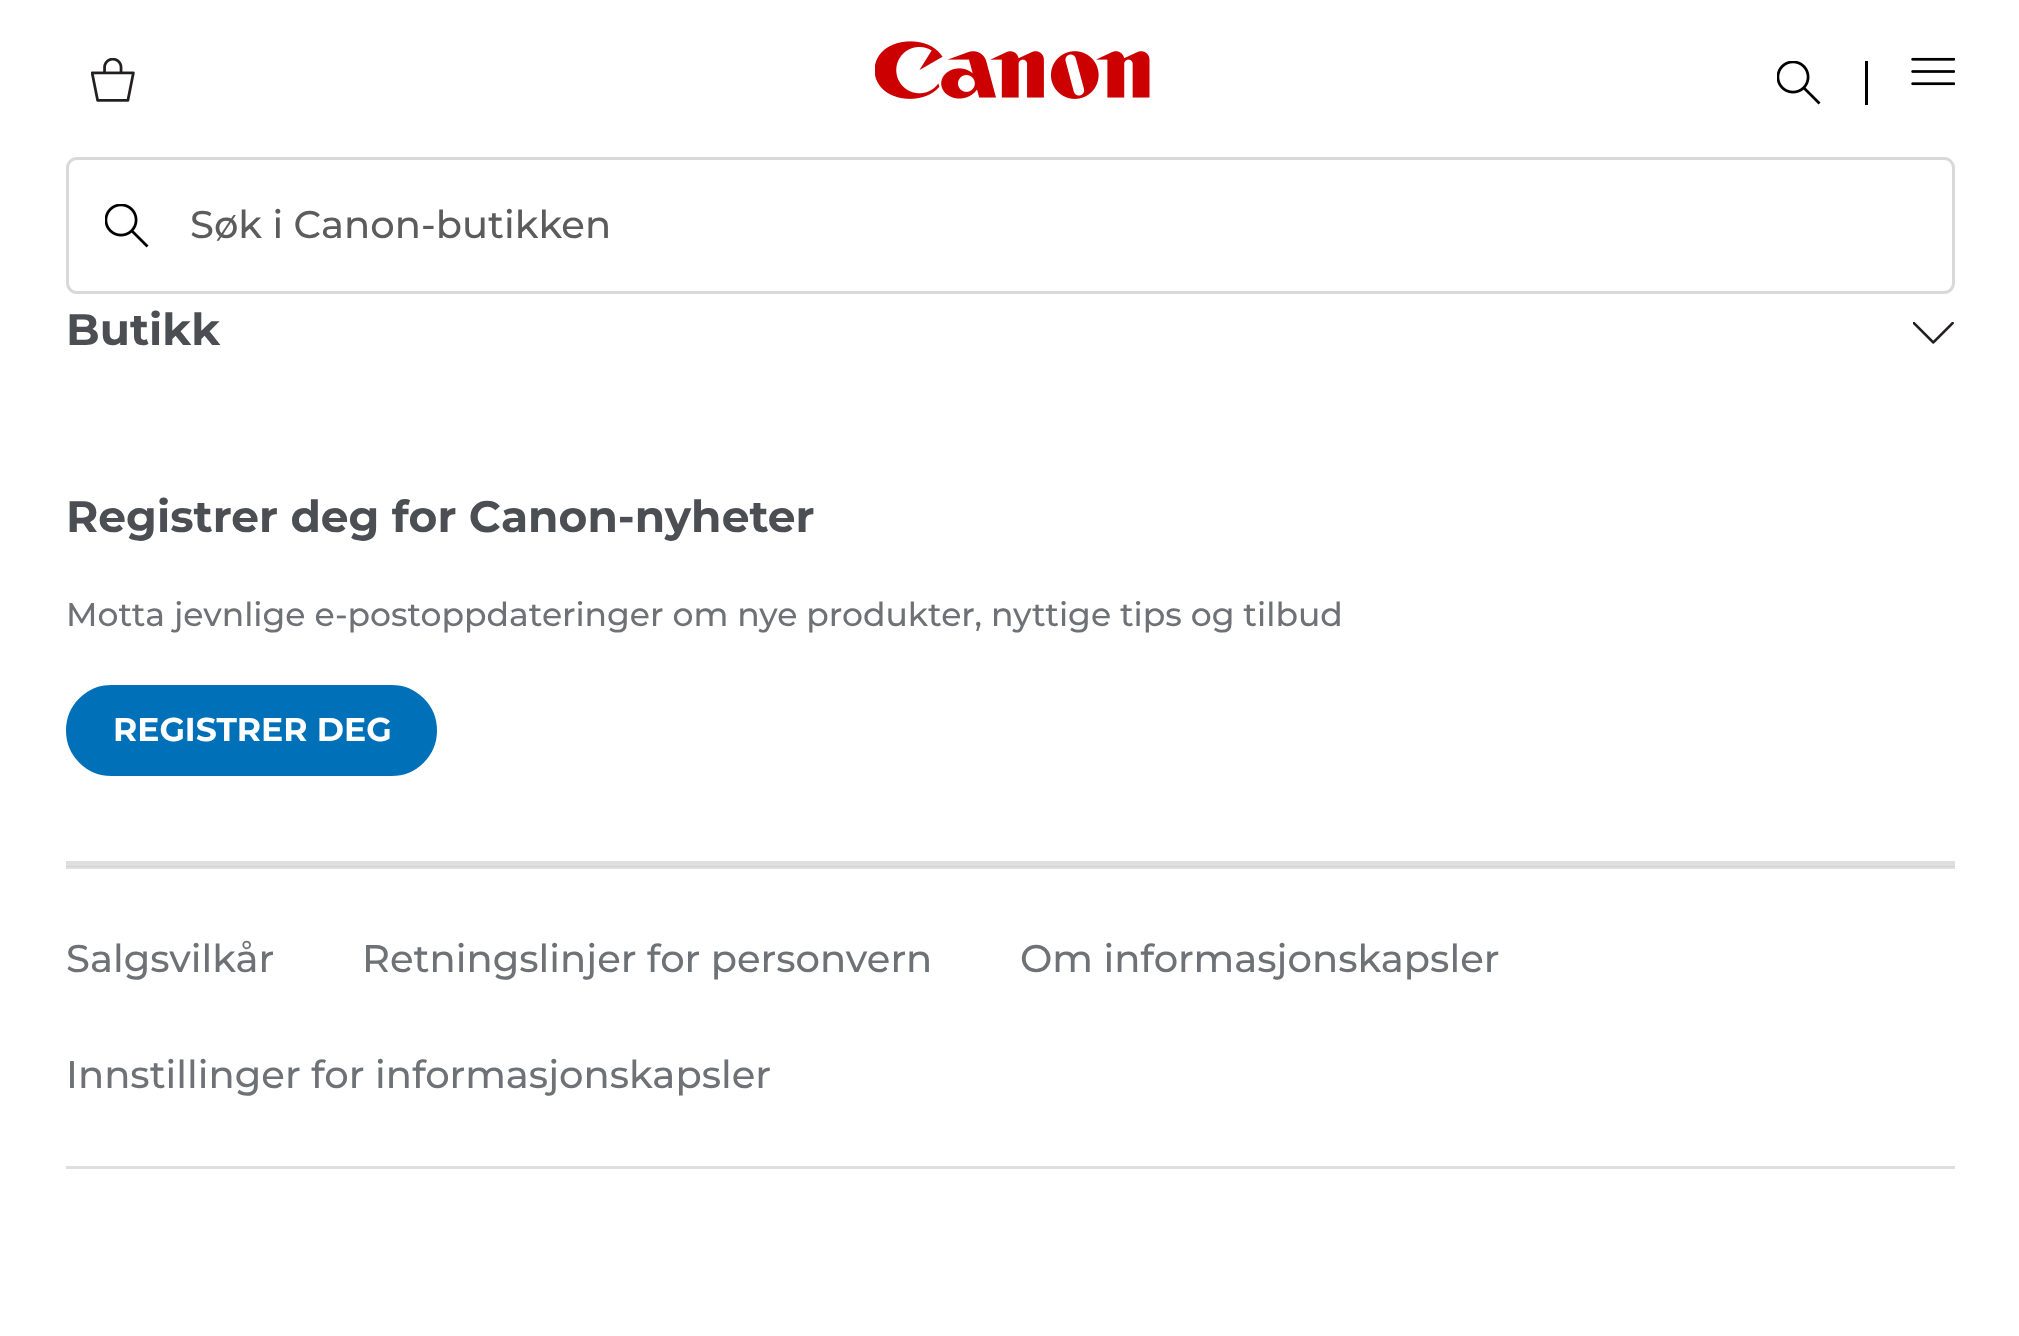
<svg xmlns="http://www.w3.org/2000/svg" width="2019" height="1336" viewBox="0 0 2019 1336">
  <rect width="100%" height="100%" fill="#fff"/>
  <path d="M66 867h1889v2H66z" fill="#dfdfdf"/>
  <image x="91" y="58" width="44" height="44" href="img/1.png"/>
  <image x="875" y="41" width="275" height="58" href="img/2.png"/>
  <path d="M1865 61h3v44H1865z" fill="#000"/>
  <image x="1777" y="61" width="44" height="44" href="img/3.png"/>
  <image x="1911" y="57" width="44" height="29" href="img/4.png"/>
  <rect x="67.5" y="158.5" width="1886" height="134" rx="9.5" fill="none" stroke="#d9d9d9" stroke-width="3"/>
  <image x="105" y="204" width="44" height="44" href="img/3.png"/>
  <image x="1913" y="322" width="41" height="22" href="img/5.png"/>
  <rect x="67.5" y="686.5" width="368" height="88" rx="44" fill="#0071b8" stroke="#0071b8" stroke-width="3"/>
  <path d="M66 861h1889v5H66z" fill="#dfdfdf"/>
  <path d="M66 866h1889v1H66z" fill="#d2d2d2"/>
  <path d="M66 1166h1889v3H66z" fill="#dfdfdf"/>
  <text x="190" y="238" font-family="Montserrat" font-size="38.5" font-weight="500" fill="#5c5c5c">Søk i Canon-butikken</text>
  <g font-family="Montserrat" font-size="44" font-weight="bold" fill="#4b4f54">
    <text x="66" y="345">Butikk</text>
    <text x="66" y="532">Registrer deg for Canon-nyheter</text>
  </g>
  <text x="66" y="626" font-family="Montserrat" font-size="33" font-weight="500" fill="#6e7276">Motta jevnlige e-postoppdateringer om nye produkter, nyttige tips og tilbud</text>
  <text x="113" y="741" font-family="Montserrat" font-size="33" font-weight="bold" fill="#fff">REGISTRER DEG</text>
  <g font-family="Montserrat" font-size="38.5" font-weight="500" fill="#6e7276">
    <text x="66" y="972">Salgsvilkår</text>
    <text x="362" y="972">Retningslinjer for personvern</text>
    <text x="1020" y="972">Om informasjonskapsler</text>
    <text x="66" y="1088">Innstillinger for informasjonskapsler</text>
  </g>
</svg>
